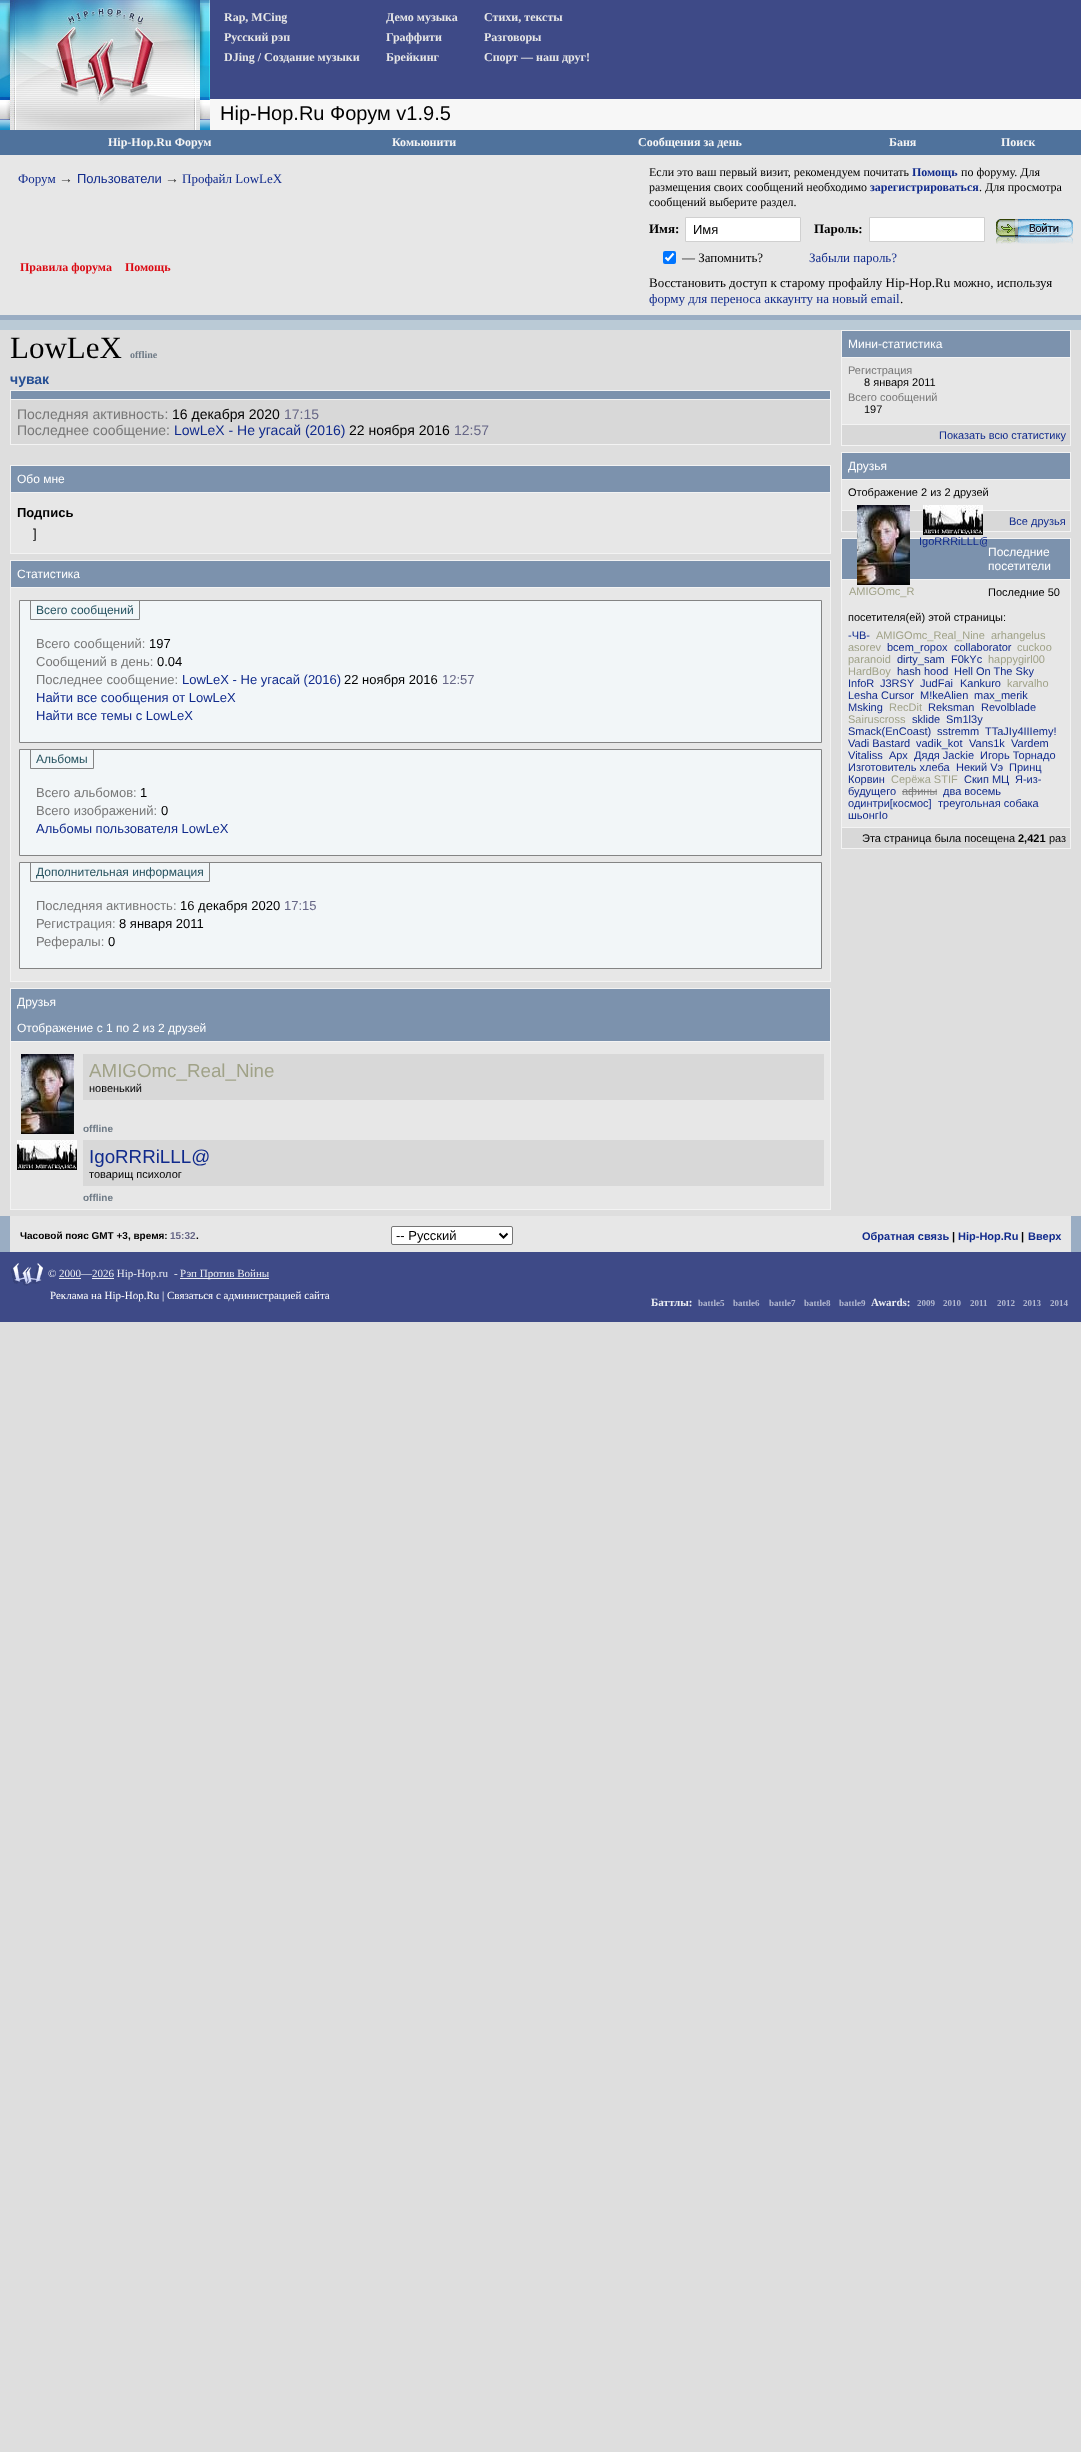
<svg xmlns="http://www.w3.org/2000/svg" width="1081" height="2452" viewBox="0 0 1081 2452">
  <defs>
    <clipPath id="clip1"><path d="M919 505h68v105H919z"/></clipPath>
  </defs>
  <rect width="100%" height="100%" fill="#dedede"/>
  <image x="0" y="0" width="210" height="120" href="img/1.png"/>
  <image x="0" y="120" width="210" height="10" href="img/2.png"/>
  <path d="M210 0h871v99H210z" fill="#3e4a87"/>
  <path d="M210 99h871v31H210z" fill="#f7f7f7"/>
  <path d="M0 130h1081v25H0z" fill="#4f729c"/>
  <path d="M0 155h1081v160H0z" fill="#e7e7e7"/>
  <path d="M0 315h1081v5H0z" fill="#9aadc3"/>
  <path d="M685.5 217.5h115v24H685.5z" fill="#fff" stroke="#d0d0d0"/>
  <path d="M869.5 217.5h115v24H869.5z" fill="#fff" stroke="#d0d0d0"/>
  <image x="996" y="219" width="77" height="25" href="img/3.png"/>
  <rect x="663" y="251" width="13" height="13" rx="2" fill="#0075ff"/>
  <path d="M665.5 257.5L668 260L673.5 253.5" fill="none" stroke="#fff" stroke-width="2.1"/>
  <path d="M0 320h1081v10H0z" fill="#bacad6"/>
  <path d="M10 390h821v55H10z" fill="#f3f3f3"/>
  <path d="M11 391h819v8H11z" fill="#7c92ad"/>
  <path d="M11 400h819v44H11z" fill="#d8d8d8"/>
  <path d="M10 465h821v89H10z" fill="#f3f3f3"/>
  <path d="M11 466h819v26H11z" fill="#7c92ad"/>
  <path d="M11 493h819v60H11z" fill="#e7e7e7"/>
  <path d="M10 560h821v422H10z" fill="#f3f3f3"/>
  <path d="M11 561h819v26H11z" fill="#7c92ad"/>
  <path d="M11 588h819v393H11z" fill="#e7e7e7"/>
  <path d="M19.5 600.5h802v142H19.5z" fill="#f2f6f8" stroke="#848484"/>
  <path d="M30.5 600.5h109v19H30.5z" fill="none" stroke="#848484"/>
  <path d="M19.5 749.5h802v106H19.5z" fill="#f2f6f8" stroke="#848484"/>
  <path d="M30.5 749.5h63v19H30.5z" fill="none" stroke="#848484"/>
  <path d="M19.5 862.5h802v106H19.5z" fill="#f2f6f8" stroke="#848484"/>
  <path d="M30.5 862.5h179v19H30.5z" fill="none" stroke="#848484"/>
  <path d="M10 988h821v222H10z" fill="#f3f3f3"/>
  <path d="M11 989h819v52H11z" fill="#7c92ad"/>
  <path d="M11 1042h819v167H11z" fill="#e7e7e7"/>
  <image x="21" y="1054" width="53" height="80" href="img/4.png"/>
  <path d="M83 1054h741v46H83z" fill="#d8d8d8"/>
  <image x="17" y="1140" width="60" height="30" href="img/5.png"/>
  <path d="M83 1140h741v46H83z" fill="#d8d8d8"/>
  <path d="M841 330h230v116H841z" fill="#f3f3f3"/>
  <path d="M842 331h228v26H842z" fill="#7c92ad"/>
  <path d="M842 358h228v66H842z" fill="#e7e7e7"/>
  <path d="M842 425h228v20H842z" fill="#d8d8d8"/>
  <path d="M841 452h230v80H841z" fill="#f3f3f3"/>
  <path d="M842 453h228v26H842z" fill="#7c92ad"/>
  <path d="M842 480h228v30H842z" fill="#e7e7e7"/>
  <path d="M842 511h228v20H842z" fill="#d8d8d8"/>
  <image x="923" y="505" width="60" height="30" href="img/5.png"/>
  <path d="M841 538h230v311H841z" fill="#f3f3f3"/>
  <path d="M842 539h228v40H842z" fill="#7c92ad"/>
  <path d="M842 580h228v247H842z" fill="#e7e7e7"/>
  <image x="857" y="505" width="53" height="80" href="img/4.png"/>
  <path d="M902 791h35v1H902z" fill="#808080"/>
  <path d="M842 828h228v20H842z" fill="#d8d8d8"/>
  <path d="M0 1216h1081v36H0z" fill="#9aadc3"/>
  <path d="M10 1216h1061v36H10z" fill="#e7e7e7"/>
  <rect x="391.5" y="1226.5" width="121" height="18" rx="1.5" fill="#fff" stroke="#767676"/>
  <path d="M499.5 1233.5L503.5 1237.5L507.5 1233.5" fill="none" stroke="#000" stroke-width="2"/>
  <path d="M0 1252h1081v70H0z" fill="#3e4a87"/>
  <image x="11" y="1263" width="32" height="23" href="img/6.png"/>
  <path d="M59 1278h22v1H59z" fill="#eceef3"/>
  <path d="M92 1278h22v1H92z" fill="#eceef3"/>
  <path d="M180 1278h89v1H180z" fill="#eceef3"/>
  <g font-family="Liberation Serif" font-size="12" font-weight="bold" fill="#e6e6e6">
    <text x="224" y="21">Rap, MCing</text>
    <text x="224" y="41">Русский рэп</text>
    <text x="224" y="61">DJing / Создание музыки</text>
    <text x="386" y="21">Демо музыка</text>
    <text x="386" y="41">Граффити</text>
    <text x="386" y="61">Брейкинг</text>
    <text x="484" y="21">Стихи, тексты</text>
    <text x="484" y="41">Разговоры</text>
    <text x="484" y="61">Спорт — наш друг!</text>
  </g>
  <text x="220" y="120" font-family="Liberation Sans" font-size="20" fill="#000">Hip-Hop.Ru Форум v1.9.5</text>
  <g font-family="Liberation Serif" font-size="12" font-weight="bold" fill="#f5f5f5">
    <text x="108" y="146">Hip-Hop.Ru Форум</text>
    <text x="392" y="146">Комьюнити</text>
    <text x="638" y="146">Сообщения за день</text>
    <text x="889" y="146">Баня</text>
    <text x="1001" y="146">Поиск</text>
  </g>
  <text x="18" y="183" font-family="Liberation Serif" font-size="13" fill="#102a8c">Форум</text>
  <text x="59" y="183" font-family="Liberation Sans" font-size="14" fill="#333">→</text>
  <text x="77" y="183" font-family="Liberation Sans" font-size="13" fill="#102a8c">Пользователи</text>
  <text x="165" y="183" font-family="Liberation Serif" font-size="14" fill="#333">→</text>
  <text x="182" y="183" font-family="Liberation Serif" font-size="13" fill="#102a8c">Профайл LowLeX</text>
  <g font-family="Liberation Serif" font-size="12" font-weight="bold" fill="#db0912">
    <text x="20" y="271">Правила форума</text>
    <text x="125" y="271">Помощь</text>
  </g>
  <text x="649" y="176" font-family="Liberation Serif" font-size="12" fill="#000">Если это ваш первый визит, рекомендуем почитать</text>
  <text x="912" y="176" font-family="Liberation Serif" font-size="12" font-weight="bold" fill="#102a8c">Помощь</text>
  <g font-family="Liberation Serif" font-size="12" fill="#000">
    <text x="961" y="176">по форуму. Для</text>
    <text x="649" y="191">размещения своих сообщений необходимо</text>
  </g>
  <text x="870" y="191" font-family="Liberation Serif" font-size="12" font-weight="bold" fill="#102a8c">зарегистрироваться</text>
  <g font-family="Liberation Serif" font-size="12" fill="#000">
    <text x="979" y="191">. Для просмотра</text>
    <text x="649" y="206">сообщений выберите раздел.</text>
  </g>
  <text x="649" y="233" font-family="Liberation Serif" font-size="13" font-weight="bold" fill="#000">Имя:</text>
  <text x="693" y="234" font-family="Liberation Sans" font-size="13" fill="#000">Имя</text>
  <text x="814" y="233" font-family="Liberation Serif" font-size="13" font-weight="bold" fill="#000">Пароль:</text>
  <text x="682" y="262" font-family="Liberation Serif" font-size="13" fill="#000">— Запомнить?</text>
  <text x="809" y="262" font-family="Liberation Serif" font-size="13" fill="#102a8c">Забыли пароль?</text>
  <text x="649" y="287" font-family="Liberation Serif" font-size="13" fill="#000">Восстановить доступ к старому профайлу Hip-Hop.Ru можно, используя</text>
  <text x="649" y="303" font-family="Liberation Serif" font-size="13" fill="#102a8c">форму для переноса аккаунту на новый email</text>
  <text x="900" y="303" font-family="Liberation Serif" font-size="13" fill="#000">.</text>
  <text x="10" y="358" font-family="Liberation Serif" font-size="31" fill="#000">LowLeX</text>
  <text x="130" y="358" font-family="Liberation Serif" font-size="10" font-weight="bold" fill="#6d7985">offline</text>
  <text x="10" y="384" font-family="Liberation Sans" font-size="14" font-weight="bold" fill="#264f94">чувак</text>
  <text x="17" y="419" font-family="Liberation Sans" font-size="14" fill="#777">Последняя активность:</text>
  <text x="172" y="419" font-family="Liberation Sans" font-size="14" fill="#000">16 декабря 2020</text>
  <text x="284" y="419" font-family="Liberation Sans" font-size="14" fill="#666686">17:15</text>
  <text x="17" y="435" font-family="Liberation Sans" font-size="14" fill="#777">Последнее сообщение:</text>
  <text x="174" y="435" font-family="Liberation Sans" font-size="14" fill="#102a8c">LowLeX - Не угасай (2016)</text>
  <text x="349" y="435" font-family="Liberation Sans" font-size="14" fill="#000">22 ноября 2016</text>
  <text x="454" y="435" font-family="Liberation Sans" font-size="14" fill="#666686">12:57</text>
  <text x="17" y="483" font-family="Liberation Sans" font-size="12" fill="#fff">Обо мне</text>
  <text x="17" y="517" font-family="Liberation Sans" font-size="13" font-weight="bold" fill="#000">Подпись</text>
  <text x="33" y="538" font-family="Liberation Sans" font-size="13" fill="#000">]</text>
  <text x="17" y="578" font-family="Liberation Sans" font-size="12" fill="#fff">Статистика</text>
  <text x="36" y="614" font-family="Liberation Sans" font-size="12" fill="#275360">Всего сообщений</text>
  <text x="36" y="648" font-family="Liberation Sans" font-size="13" fill="#777">Всего сообщений:</text>
  <text x="149" y="648" font-family="Liberation Sans" font-size="13" fill="#000">197</text>
  <text x="36" y="666" font-family="Liberation Sans" font-size="13" fill="#777">Сообщений в день:</text>
  <text x="157" y="666" font-family="Liberation Sans" font-size="13" fill="#000">0.04</text>
  <text x="36" y="684" font-family="Liberation Sans" font-size="13" fill="#777">Последнее сообщение:</text>
  <text x="182" y="684" font-family="Liberation Sans" font-size="13" fill="#102a8c">LowLeX - Не угасай (2016)</text>
  <text x="344" y="684" font-family="Liberation Sans" font-size="13" fill="#000">22 ноября 2016</text>
  <text x="442" y="684" font-family="Liberation Sans" font-size="13" fill="#666686">12:57</text>
  <g font-family="Liberation Sans" font-size="13" fill="#102a8c">
    <text x="36" y="702">Найти все сообщения от LowLeX</text>
    <text x="36" y="720">Найти все темы с LowLeX</text>
  </g>
  <text x="36" y="763" font-family="Liberation Sans" font-size="12" fill="#275360">Альбомы</text>
  <text x="36" y="797" font-family="Liberation Sans" font-size="13" fill="#777">Всего альбомов:</text>
  <text x="140" y="797" font-family="Liberation Sans" font-size="13" fill="#000">1</text>
  <text x="36" y="815" font-family="Liberation Sans" font-size="13" fill="#777">Всего изображений:</text>
  <text x="161" y="815" font-family="Liberation Sans" font-size="13" fill="#000">0</text>
  <text x="36" y="833" font-family="Liberation Sans" font-size="13" fill="#102a8c">Альбомы пользователя LowLeX</text>
  <text x="36" y="876" font-family="Liberation Sans" font-size="12" fill="#275360">Дополнительная информация</text>
  <text x="36" y="910" font-family="Liberation Sans" font-size="13" fill="#777">Последняя активность:</text>
  <text x="180" y="910" font-family="Liberation Sans" font-size="13" fill="#000">16 декабря 2020</text>
  <text x="284" y="910" font-family="Liberation Sans" font-size="13" fill="#666686">17:15</text>
  <text x="36" y="928" font-family="Liberation Sans" font-size="13" fill="#777">Регистрация:</text>
  <text x="119" y="928" font-family="Liberation Sans" font-size="13" fill="#000">8 января 2011</text>
  <text x="36" y="946" font-family="Liberation Sans" font-size="13" fill="#777">Рефералы:</text>
  <text x="108" y="946" font-family="Liberation Sans" font-size="13" fill="#000">0</text>
  <g font-family="Liberation Sans" font-size="12" fill="#fff">
    <text x="17" y="1006">Друзья</text>
    <text x="17" y="1032">Отображение с 1 по 2 из 2 друзей</text>
  </g>
  <text x="89" y="1077" font-family="Liberation Sans" font-size="18.75" fill="#a0a288">AMIGOmc_Real_Nine</text>
  <text x="89" y="1092" font-family="Liberation Sans" font-size="11" fill="#000">новенький</text>
  <text x="83" y="1132" font-family="Liberation Sans" font-size="10" font-weight="bold" fill="#6d7985">offline</text>
  <text x="89" y="1163" font-family="Liberation Sans" font-size="18.75" fill="#102a8c">IgoRRRiLLL@</text>
  <text x="89" y="1178" font-family="Liberation Sans" font-size="11" fill="#000">товарищ психолог</text>
  <text x="83" y="1201" font-family="Liberation Sans" font-size="10" font-weight="bold" fill="#6d7985">offline</text>
  <text x="848" y="348" font-family="Liberation Sans" font-size="12" fill="#fff">Мини-статистика</text>
  <text x="848" y="374" font-family="Liberation Sans" font-size="11" fill="#777">Регистрация</text>
  <text x="864" y="386" font-family="Liberation Sans" font-size="11" fill="#000">8 января 2011</text>
  <text x="848" y="401" font-family="Liberation Sans" font-size="11" fill="#777">Всего сообщений</text>
  <text x="864" y="413" font-family="Liberation Sans" font-size="11" fill="#000">197</text>
  <text x="939" y="439" font-family="Liberation Sans" font-size="11" fill="#102a8c">Показать всю статистику</text>
  <text x="848" y="470" font-family="Liberation Sans" font-size="12" fill="#fff">Друзья</text>
  <text x="848" y="496" font-family="Liberation Sans" font-size="11" fill="#000">Отображение 2 из 2 друзей</text>
  <g clip-path="url(#clip1)">
    <text x="919" y="545" font-family="Liberation Sans" font-size="11" fill="#102a8c">IgoRRRiLLL@</text>
  </g>
  <text x="849" y="595" font-family="Liberation Sans" font-size="11" fill="#a0a288">AMIGOmc_R</text>
  <text x="1009" y="525" font-family="Liberation Sans" font-size="11" fill="#102a8c">Все друзья</text>
  <g font-family="Liberation Sans" font-size="12" fill="#fff">
    <text x="988" y="556">Последние</text>
    <text x="988" y="570">посетители</text>
  </g>
  <g font-family="Liberation Sans" font-size="11" fill="#000">
    <text x="988" y="596">Последние 50</text>
    <text x="848" y="621">посетителя(ей) этой страницы:</text>
  </g>
  <text x="848" y="639" font-family="Liberation Sans" font-size="11" fill="#102a8c">-ЧВ-</text>
  <g font-family="Liberation Sans" font-size="11" fill="#a0a288">
    <text x="876" y="639">AMIGOmc_Real_Nine</text>
    <text x="991" y="639">arhangelus</text>
    <text x="848" y="651">asorev</text>
  </g>
  <g font-family="Liberation Sans" font-size="11" fill="#102a8c">
    <text x="887" y="651">bcem_ropox</text>
    <text x="954" y="651">collaborator</text>
  </g>
  <g font-family="Liberation Sans" font-size="11" fill="#a0a288">
    <text x="1017" y="651">cuckoo</text>
    <text x="848" y="663">paranoid</text>
  </g>
  <g font-family="Liberation Sans" font-size="11" fill="#102a8c">
    <text x="897" y="663">dirty_sam</text>
    <text x="951" y="663">F0kYc</text>
  </g>
  <g font-family="Liberation Sans" font-size="11" fill="#a0a288">
    <text x="988" y="663">happygirl00</text>
    <text x="848" y="675">HardBoy</text>
  </g>
  <g font-family="Liberation Sans" font-size="11" fill="#102a8c">
    <text x="897" y="675">hash hood</text>
    <text x="954" y="675">Hell On The Sky</text>
    <text x="848" y="687">InfoR</text>
    <text x="880" y="687">J3RSY</text>
    <text x="920" y="687">JudFai</text>
    <text x="960" y="687">Kankuro</text>
  </g>
  <text x="1007" y="687" font-family="Liberation Sans" font-size="11" fill="#a0a288">karvalho</text>
  <g font-family="Liberation Sans" font-size="11" fill="#102a8c">
    <text x="848" y="699">Lesha Cursor</text>
    <text x="920" y="699">M!keAlien</text>
    <text x="974" y="699">max_merik</text>
    <text x="848" y="711">Msking</text>
  </g>
  <text x="889" y="711" font-family="Liberation Sans" font-size="11" fill="#a0a288">RecDit</text>
  <g font-family="Liberation Sans" font-size="11" fill="#102a8c">
    <text x="928" y="711">Reksman</text>
    <text x="981" y="711">Revolblade</text>
  </g>
  <text x="848" y="723" font-family="Liberation Sans" font-size="11" fill="#a0a288">Sairuscross</text>
  <g font-family="Liberation Sans" font-size="11" fill="#102a8c">
    <text x="912" y="723">sklide</text>
    <text x="946" y="723">Sm1l3y</text>
    <text x="848" y="735">Smack(EnCoast)</text>
    <text x="937" y="735">sstremm</text>
    <text x="985" y="735">TTaJIy4IIIemy!</text>
    <text x="848" y="747">Vadi Bastard</text>
    <text x="916" y="747">vadik_kot</text>
    <text x="969" y="747">Vans1k</text>
    <text x="1011" y="747">Vardem</text>
    <text x="848" y="759">Vitaliss</text>
    <text x="889" y="759">Арх</text>
    <text x="914" y="759">Дядя Jackie</text>
    <text x="980" y="759">Игорь Торнадо</text>
    <text x="848" y="771">Изготовитель хлеба</text>
    <text x="956" y="771">Некий Vэ</text>
    <text x="1009" y="771">Принц</text>
    <text x="848" y="783">Корвин</text>
  </g>
  <text x="891" y="783" font-family="Liberation Sans" font-size="11" fill="#a0a288">Серёжа STIF</text>
  <g font-family="Liberation Sans" font-size="11" fill="#102a8c">
    <text x="964" y="783">Скип МЦ</text>
    <text x="1015" y="783">Я-из-</text>
    <text x="848" y="795">будущего</text>
  </g>
  <text x="902" y="795" font-family="Liberation Sans" font-size="11" fill="#808080">афины</text>
  <g font-family="Liberation Sans" font-size="11" fill="#102a8c">
    <text x="943" y="795">два восемь</text>
    <text x="848" y="807">одинтри[космос]</text>
    <text x="938" y="807">треугольная собака</text>
    <text x="848" y="819">шьонгIо</text>
  </g>
  <text x="862" y="842" font-family="Liberation Sans" font-size="11" fill="#000">Эта страница была посещена</text>
  <text x="1018" y="842" font-family="Liberation Sans" font-size="11" font-weight="bold" fill="#000">2,421</text>
  <text x="1049" y="842" font-family="Liberation Sans" font-size="11" fill="#000">раз</text>
  <text x="20" y="1239" font-family="Liberation Sans" font-size="10" font-weight="bold" fill="#000">Часовой пояс GMT +3, время:</text>
  <text x="170" y="1239" font-family="Liberation Sans" font-size="10" font-weight="bold" fill="#666686">15:32</text>
  <text x="196" y="1239" font-family="Liberation Sans" font-size="10" font-weight="bold" fill="#000">.</text>
  <text x="396" y="1240" font-family="Liberation Sans" font-size="13" fill="#000">-- Русский</text>
  <text x="862" y="1240" font-family="Liberation Sans" font-size="11" font-weight="bold" fill="#102a8c">Обратная связь</text>
  <text x="952" y="1240" font-family="Liberation Sans" font-size="11" font-weight="bold" fill="#000">|</text>
  <text x="958" y="1240" font-family="Liberation Sans" font-size="11" font-weight="bold" fill="#102a8c">Hip-Hop.Ru</text>
  <text x="1021" y="1240" font-family="Liberation Sans" font-size="11" font-weight="bold" fill="#000">|</text>
  <text x="1028" y="1240" font-family="Liberation Sans" font-size="11" font-weight="bold" fill="#102a8c">Вверх</text>
  <g font-family="Liberation Serif" font-size="11" fill="#eceef3">
    <text x="48" y="1277">© 2000—2026 Hip-Hop.ru</text>
    <text x="174" y="1277">-</text>
    <text x="180" y="1277">Рэп Против Войны</text>
  </g>
  <text x="50" y="1299" font-family="Liberation Serif" font-size="11" fill="#fff">Реклама на Hip-Hop.Ru | Связаться с администрацией сайта</text>
  <text x="651" y="1306" font-family="Liberation Serif" font-size="11" font-weight="bold" fill="#eceef3">Баттлы:</text>
  <g font-family="Liberation Serif" font-size="9" font-weight="bold" fill="#b3b8d0">
    <text x="698" y="1306">battle5</text>
    <text x="733" y="1306">battle6</text>
    <text x="769" y="1306">battle7</text>
    <text x="804" y="1306">battle8</text>
    <text x="839" y="1306">battle9</text>
  </g>
  <text x="871" y="1306" font-family="Liberation Serif" font-size="11" font-weight="bold" fill="#eceef3">Awards:</text>
  <g font-family="Liberation Serif" font-size="9" font-weight="bold" fill="#b3b8d0">
    <text x="917" y="1306">2009</text>
    <text x="943" y="1306">2010</text>
    <text x="970" y="1306">2011</text>
    <text x="997" y="1306">2012</text>
    <text x="1023" y="1306">2013</text>
    <text x="1050" y="1306">2014</text>
  </g>
</svg>
